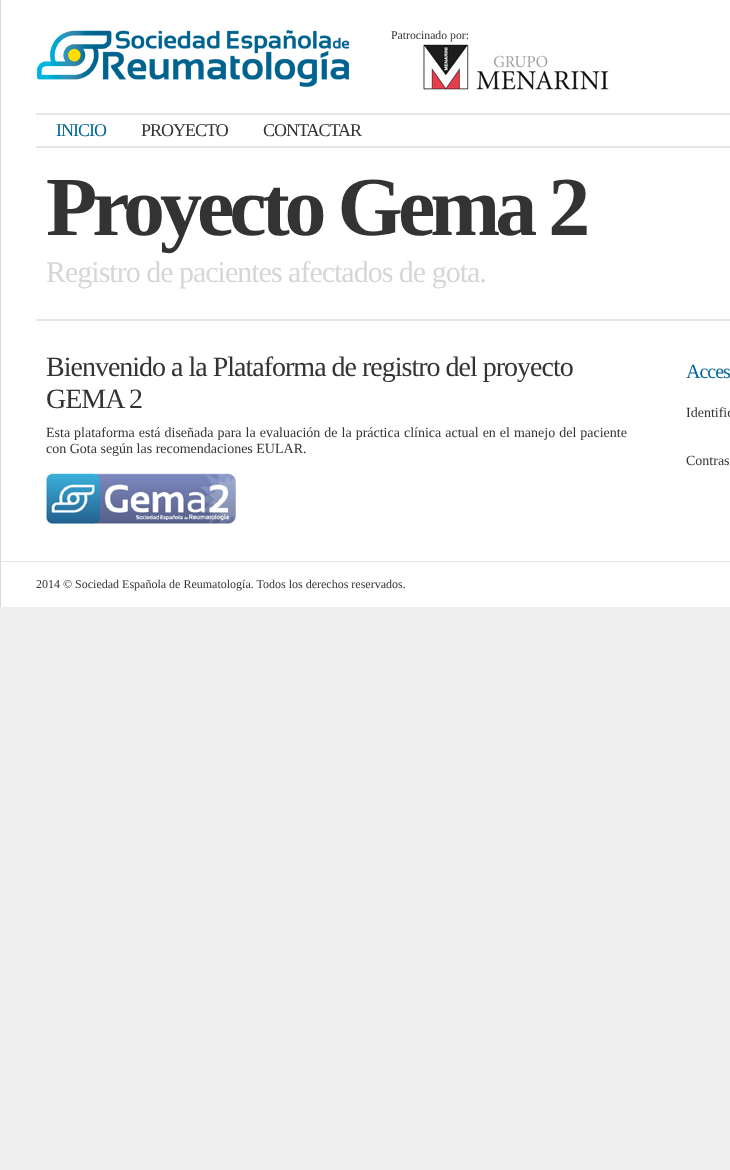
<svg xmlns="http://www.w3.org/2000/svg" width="730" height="1170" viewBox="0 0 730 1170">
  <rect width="100%" height="100%" fill="#eee"/>
  <path d="M1 0h729v561H1z" fill="#fff"/>
  <path d="M0 0h1v561H0z" fill="#d9d9d9"/>
  <image x="37" y="30" width="312" height="57" href="img/1.png"/>
  <image x="422" y="44" width="189" height="46" href="img/2.png"/>
  <path d="M36 113h694v2H36z" fill="#e6e6e6"/>
  <path d="M36 146h694v2H36z" fill="#e6e6e6"/>
  <path d="M36 319h694v2H36z" fill="#e6e6e6"/>
  <image x="46" y="473" width="190" height="51" href="img/3.png"/>
  <path d="M1 562h729v45H1z" fill="#fff"/>
  <path d="M0 561h730v1H0z" fill="#e6e6e6"/>
  <path d="M0 561h1v46H0z" fill="#d9d9d9"/>
  <text x="391" y="39" font-family="Liberation Serif" font-size="11.75" fill="#333">Patrocinado por:</text>
  <text x="56" y="136" font-family="Liberation Serif" font-size="18" letter-spacing="-1" fill="#069">INICIO</text>
  <g font-family="Liberation Serif" font-size="18" letter-spacing="-1" fill="#333">
    <text x="141" y="136">PROYECTO</text>
    <text x="263" y="136">CONTACTAR</text>
  </g>
  <text x="46" y="235" font-family="Liberation Serif" font-size="84" font-weight="bold" letter-spacing="-5" fill="#333">Proyecto Gema 2</text>
  <text x="46" y="282" font-family="Liberation Serif" font-size="30" letter-spacing="-1" fill="#d6d6d6">Registro de pacientes afectados de gota.</text>
  <g font-family="Liberation Serif" font-size="28" letter-spacing="-1" fill="#333">
    <text x="46" y="376">Bienvenido a la Plataforma de registro del proyecto</text>
    <text x="46" y="408">GEMA 2</text>
  </g>
  <g font-family="Liberation Serif" font-size="14" fill="#333">
    <text x="46" y="437" word-spacing="0.5">Esta plataforma está diseñada para la evaluación de la práctica clínica actual en el manejo del paciente</text>
    <text x="46" y="453">con Gota según las recomendaciones EULAR.</text>
  </g>
  <text x="686" y="378" font-family="Liberation Serif" font-size="20" letter-spacing="-1" fill="#069">Acces</text>
  <g font-family="Liberation Serif" font-size="14" fill="#333">
    <text x="686" y="417">Identific</text>
    <text x="686" y="465">Contras</text>
  </g>
  <text x="36" y="588" font-family="Liberation Serif" font-size="12" fill="#333">2014 © Sociedad Española de Reumatología. Todos los derechos reservados.</text>
</svg>
